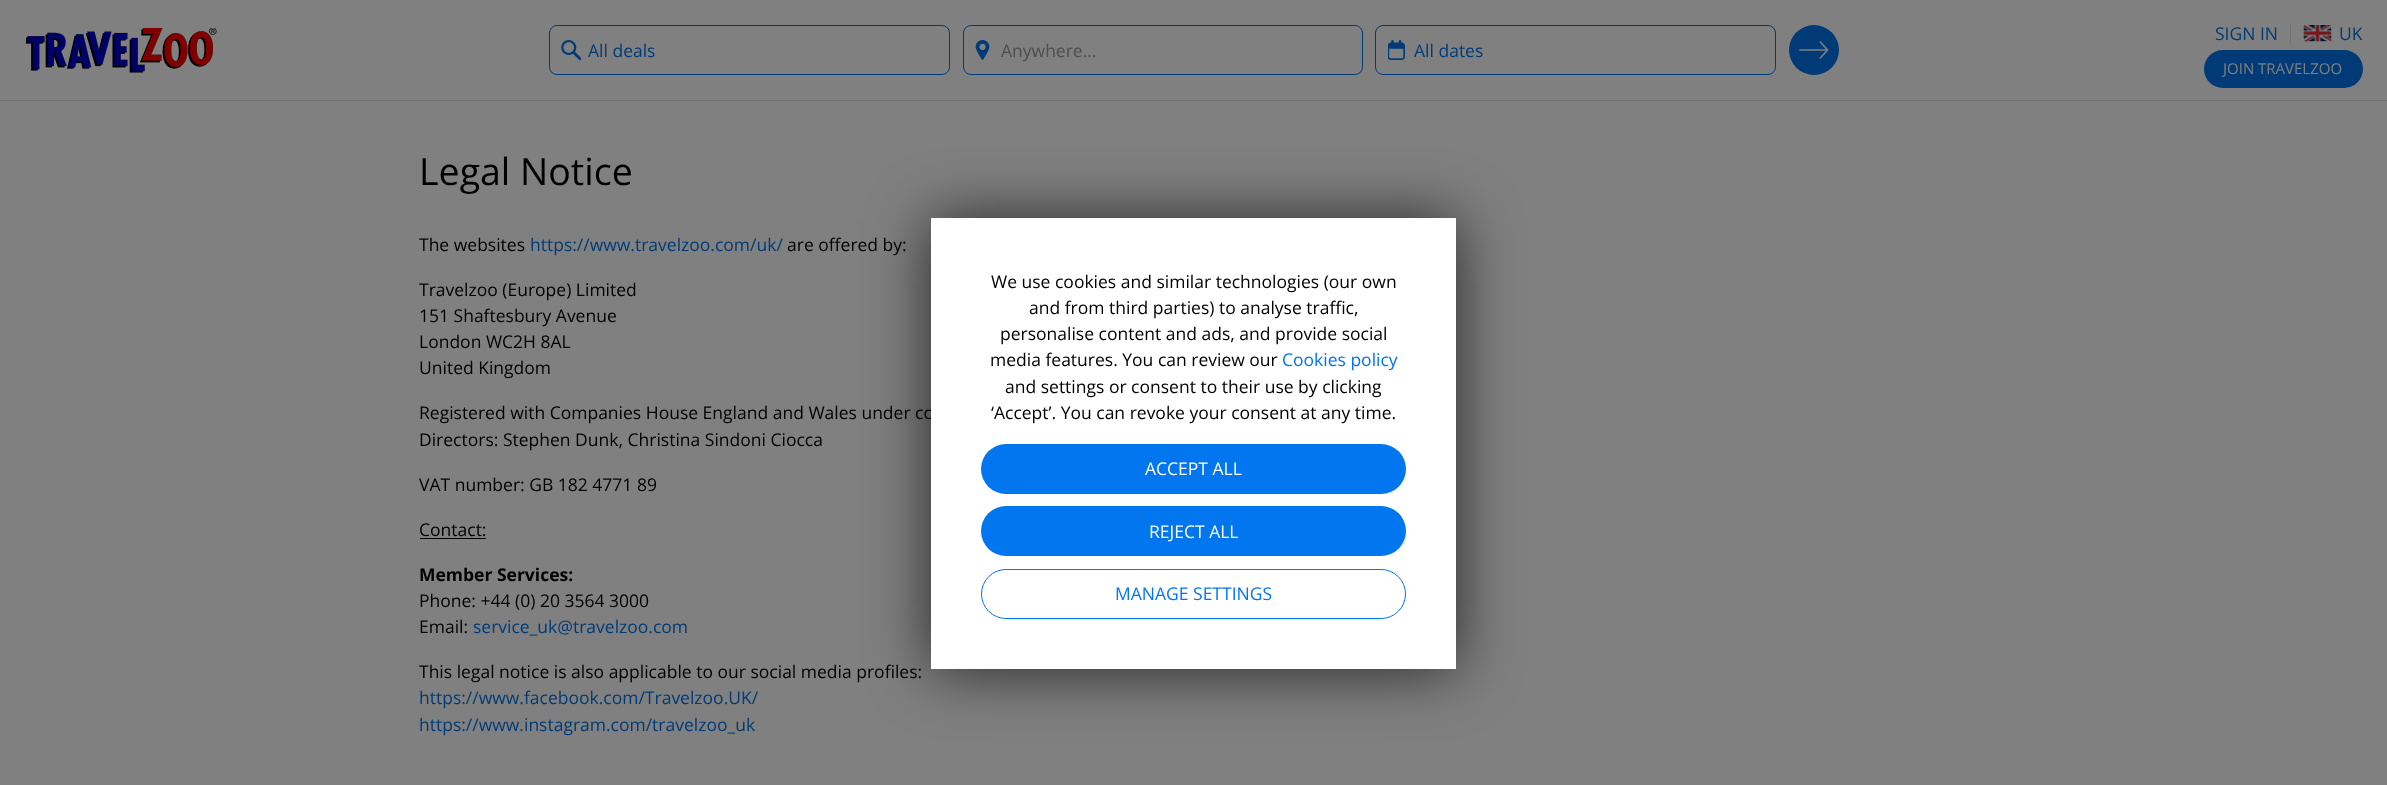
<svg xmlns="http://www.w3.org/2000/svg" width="2387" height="785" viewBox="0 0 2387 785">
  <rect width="100%" height="100%" fill="#808080"/>
  <rect x="549.5" y="25.5" width="400" height="49" rx="7.5" fill="none" stroke="#013b77"/>
  <image x="561" y="40" width="20" height="20" href="img/1.png"/>
  <rect x="963.5" y="25.5" width="399" height="49" rx="7.5" fill="none" stroke="#013b77"/>
  <image x="975" y="40" width="15" height="20" href="img/2.png"/>
  <rect x="1375.5" y="25.5" width="400" height="49" rx="7.5" fill="none" stroke="#013b77"/>
  <image x="1388" y="40" width="17" height="20" href="img/3.png"/>
  <circle cx="1814" cy="50" r="25" fill="#013b77"/>
  <image x="1799" y="41" width="30" height="18" href="img/4.png"/>
  <image x="26" y="28" width="191" height="45" href="img/5.png"/>
  <path d="M2290 24h1v19H2290z" fill="#717171"/>
  <image x="2303" y="25" width="29" height="17" href="img/6.png"/>
  <rect x="2204" y="50" width="159" height="38" rx="19" fill="#013b77"/>
  <path d="M0 100h2387v1H0z" fill="#717171"/>
  <path d="M420 538h66v1H420z" fill="#000"/>
  <path d="M931 219h525v451H931z" fill="#000000b3" filter="blur(31px)"/>
  <text x="588" y="57" font-family="Open Sans" font-size="17.5" fill="#013b77">All deals</text>
  <text x="1001" y="57" font-family="Open Sans" font-size="17.5" fill="#4e4e4e">Anywhere...</text>
  <g font-family="Open Sans" font-size="17.5" fill="#013b77">
    <text x="1414" y="57">All dates</text>
    <text x="2215" y="40">SIGN IN</text>
    <text x="2339" y="40">UK</text>
  </g>
  <text x="2223" y="74" font-family="Open Sans" font-size="15" fill="#808080">JOIN TRAVELZOO</text>
  <text x="419" y="185" font-family="Open Sans" font-size="37.5" fill="#000">Legal Notice</text>
  <text x="419" y="251" font-family="Open Sans" font-size="17.5" fill="#000">The websites</text>
  <text x="530" y="251" font-family="Open Sans" font-size="17.5" fill="#013b77">https://www.travelzoo.com/uk/</text>
  <g font-family="Open Sans" font-size="17.5" fill="#000">
    <text x="787" y="251">are offered by:</text>
    <text x="419" y="296">Travelzoo (Europe) Limited</text>
    <text x="419" y="322">151 Shaftesbury Avenue</text>
    <text x="419" y="348">London WC2H 8AL</text>
    <text x="419" y="374">United Kingdom</text>
    <text x="419" y="419">Registered with Companies House England and Wales under co</text>
    <text x="419" y="446">Directors: Stephen Dunk, Christina Sindoni Ciocca</text>
    <text x="419" y="491">VAT number: GB 182 4771 89</text>
    <text x="419" y="536">Contact:</text>
  </g>
  <text x="419" y="581" font-family="Open Sans" font-size="17.5" font-weight="bold" fill="#000">Member Services:</text>
  <g font-family="Open Sans" font-size="17.5" fill="#000">
    <text x="419" y="607">Phone: +44 (0) 20 3564 3000</text>
    <text x="419" y="633">Email:</text>
  </g>
  <text x="473" y="633" font-family="Open Sans" font-size="17.5" fill="#013b77">service_uk@travelzoo.com</text>
  <text x="419" y="678" font-family="Open Sans" font-size="17.5" fill="#000">This legal notice is also applicable to our social media profiles:</text>
  <g font-family="Open Sans" font-size="17.5" fill="#013b77">
    <text x="419" y="704">https://www.facebook.com/Travelzoo.UK/</text>
    <text x="419" y="731">https://www.instagram.com/travelzoo_uk</text>
  </g>
  <path d="M931 218h525v451H931z" fill="#fff"/>
  <g font-family="Open Sans" font-size="17.5" fill="#000">
    <text x="991" y="288">We use cookies and similar technologies (our own</text>
    <text x="1029" y="314">and from third parties) to analyse traffic,</text>
    <text x="1000" y="340">personalise content and ads, and provide social</text>
    <text x="990" y="366">media features. You can review our</text>
  </g>
  <text x="1282" y="366" font-family="Open Sans" font-size="17.5" fill="#0276ee">Cookies policy</text>
  <g font-family="Open Sans" font-size="17.5" fill="#000">
    <text x="1005" y="393">and settings or consent to their use by clicking</text>
    <text x="991" y="419">‘Accept’. You can revoke your consent at any time.</text>
  </g>
  <rect x="981" y="444" width="425" height="50" rx="25" fill="#0276ee"/>
  <text x="1145" y="475" font-family="Open Sans" font-size="17.5" fill="#fff">ACCEPT ALL</text>
  <rect x="981" y="506" width="425" height="50" rx="25" fill="#0276ee"/>
  <text x="1149" y="538" font-family="Open Sans" font-size="17.5" fill="#fff">REJECT ALL</text>
  <rect x="981.5" y="569.5" width="424" height="49" rx="24.5" fill="none" stroke="#0276ee"/>
  <text x="1115" y="600" font-family="Open Sans" font-size="17.5" fill="#0276ee">MANAGE SETTINGS</text>
</svg>
